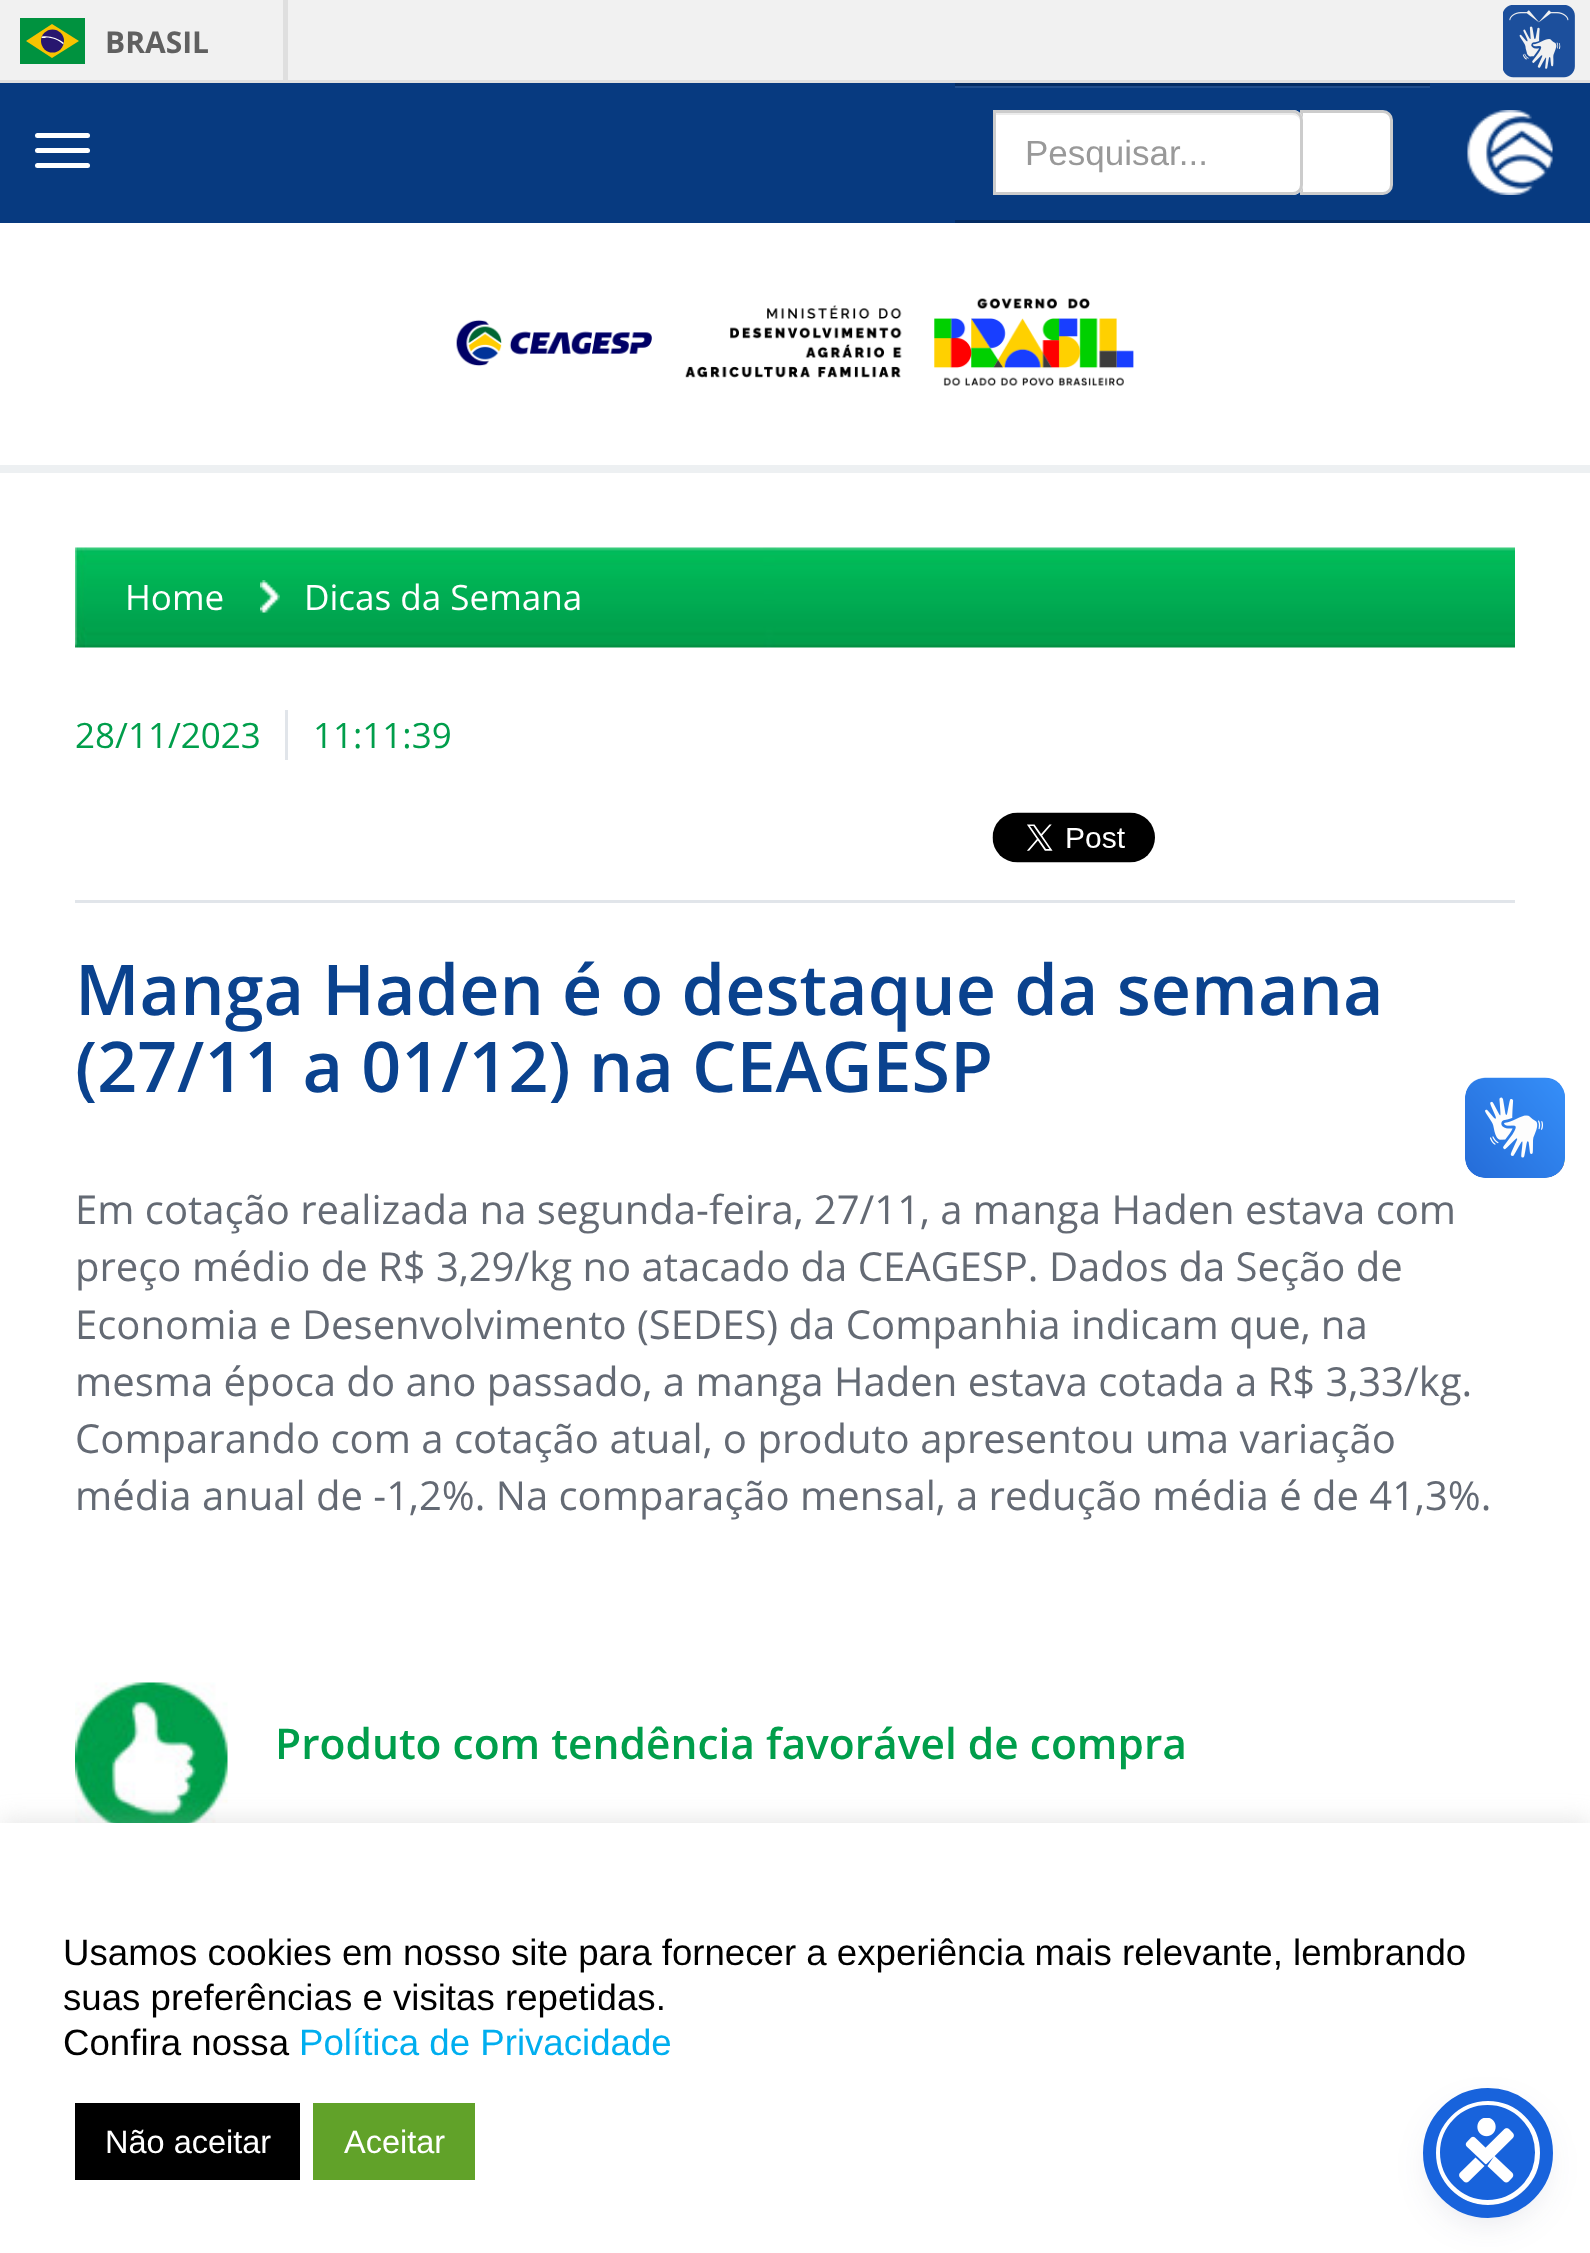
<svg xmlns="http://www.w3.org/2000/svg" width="1590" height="2253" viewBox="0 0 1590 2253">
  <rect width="100%" height="100%" fill="#fff"/>
  <path d="M0 0h1590v80H0z" fill="#f1f1f1"/>
  <path d="M0 80h1590v3H0z" fill="#dfdfdf"/>
  <path d="M283 0h5v80H283z" fill="#dfdfdf"/>
  <path d="M20 18h65v46H20z" fill="#00923f"/>
  <path d="M52 24L26 41L52 58L79 41Z" fill="#f8c300"/>
  <circle cx="52.5" cy="41" r="11.5" fill="#28166f"/>
  <path d="M45.5 37.5C52.5 37.5 58.5 40 63.5 44.5V42.5C57.5 38 50 35.5 42 36.5L41.5 38H45.5Z" fill="#fff"/>
  <image x="1503" y="5" width="72" height="73" href="img/1.png"/>
  <path d="M0 83h1590v140H0z" fill="#073a80"/>
  <rect x="35" y="133" width="55" height="5" rx="2.5" fill="#fff"/>
  <rect x="35" y="148" width="55" height="5" rx="2.5" fill="#fff"/>
  <rect x="35" y="163" width="55" height="5" rx="2.5" fill="#fff"/>
  <path d="M955 86h475v2H955z" fill="#204e8d"/>
  <path d="M955 83h475v3H955z" fill="#042c63"/>
  <path d="M955 220h475v3H955z" fill="#042c63"/>
  <path d="M1301.5 111.5H1383C1387.5 111.5 1391.5 115.5 1391.5 120V185C1391.5 189.5 1387.5 193.5 1383 193.5H1301.5Z" fill="#fff" stroke="#ccc" stroke-width="3"/>
  <path d="M993 110H1293C1298.5 110 1303 114.5 1303 120V185C1303 190.5 1298.5 195 1293 195H993Z" fill="#fff"/>
  <path d="M995 115H1292C1297 115 1300 118 1300 122C1300 118 1298 114 1294 113H995Z" fill="#ececec"/>
  <path d="M994.5 111.5H1293C1297.5 111.5 1301.5 115.5 1301.5 120V185C1301.5 189.5 1297.5 193.5 1293 193.5H994.5Z" fill="none" stroke="#ccc" stroke-width="3"/>
  <image x="1467" y="110" width="86" height="85" href="img/2.png"/>
  <path d="M0 465h1590v8H0z" fill="#edf0f2"/>
  <image x="456" y="298" width="678" height="88" href="img/3.png"/>
  <image x="75" y="547" width="1440" height="101" href="img/4.png"/>
  <image x="260" y="580" width="20" height="33" href="img/5.png"/>
  <path d="M285 710h3v50H285z" fill="#e1e5ea"/>
  <image x="992" y="812" width="163" height="51" href="img/6.png"/>
  <path d="M75 900h1440v3H75z" fill="#e1e5ea"/>
  <image x="75" y="1682" width="153" height="141" href="img/7.png"/>
  <image x="1465" y="1077" width="100" height="101" href="img/8.png"/>
  <image x="1465" y="1078" width="100" height="100" href="img/9.png"/>
  <path d="M0 1820h1590v433H0z" fill="#acabab4d" filter="blur(12.5px)"/>
  <path d="M0 1823h1590v430H0z" fill="#fff"/>
  <path d="M75 2103h225v77H75z" fill="#000"/>
  <path d="M313 2103h162v77H313z" fill="#61a229"/>
  <rect x="1435" y="2105" width="105" height="105" rx="52.5" fill="#5d649433" filter="blur(5px)"/>
  <rect x="1435" y="2113" width="105" height="105" rx="52.5" fill="#252c6126" filter="blur(19px)"/>
  <circle cx="1487.5" cy="2152.5" r="50" fill="#1863dc" stroke="#fff" stroke-width="5"/>
  <circle cx="1488" cy="2153" r="58.5" fill="none" stroke="#1863dc" stroke-width="13"/>
  <image x="1459" y="2118" width="55" height="65" href="img/10.png"/>
  <text x="105" y="53" font-family="Open Sans" font-size="30" font-weight="bold" fill="#606060">BRASIL</text>
  <text x="1025" y="165" font-family="Liberation Sans" font-size="35" fill="#999">Pesquisar...</text>
  <g font-family="Open Sans" font-size="35" fill="#fff">
    <text x="125" y="610">Home</text>
    <text x="304" y="610">Dicas da Semana</text>
  </g>
  <g font-family="Open Sans" font-size="35" fill="#009e4b">
    <text x="75" y="748">28/11/2023</text>
    <text x="313" y="748">11:11:39</text>
  </g>
  <g font-family="Open Sans" font-size="70" font-weight="600" fill="#0a428e">
    <text x="75" y="1015">Manga Haden é o destaque da semana</text>
    <text x="75" y="1092">(27/11 a 01/12) na CEAGESP</text>
  </g>
  <g font-family="Open Sans" font-size="40" fill="#646a74">
    <text x="75" y="1224">Em cotação realizada na segunda-feira, 27/11, a manga Haden estava com</text>
    <text x="75" y="1281">preço médio de R$ 3,29/kg no atacado da CEAGESP. Dados da Seção de</text>
    <text x="75" y="1339">Economia e Desenvolvimento (SEDES) da Companhia indicam que, na</text>
    <text x="75" y="1396">mesma época do ano passado, a manga Haden estava cotada a R$ 3,33/kg.</text>
    <text x="75" y="1453">Comparando com a cotação atual, o produto apresentou uma variação</text>
    <text x="75" y="1510">média anual de -1,2%. Na comparação mensal, a redução média é de 41,3%.</text>
  </g>
  <text x="275" y="1759" font-family="Open Sans" font-size="42.5" font-weight="600" fill="#009e4b">Produto com tendência favorável de compra</text>
  <g font-family="Liberation Sans" font-size="36.65" fill="#000">
    <text x="63" y="1965">Usamos cookies em nosso site para fornecer a experiência mais relevante, lembrando</text>
    <text x="63" y="2010">suas preferências e visitas repetidas.</text>
    <text x="63" y="2055">Confira nossa</text>
  </g>
  <text x="299" y="2055" font-family="Liberation Sans" font-size="36.65" fill="#00aeef">Política de Privacidade</text>
  <g font-family="Liberation Sans" font-size="32.5" fill="#fff">
    <text x="105" y="2153">Não aceitar</text>
    <text x="344" y="2153">Aceitar</text>
  </g>
</svg>
